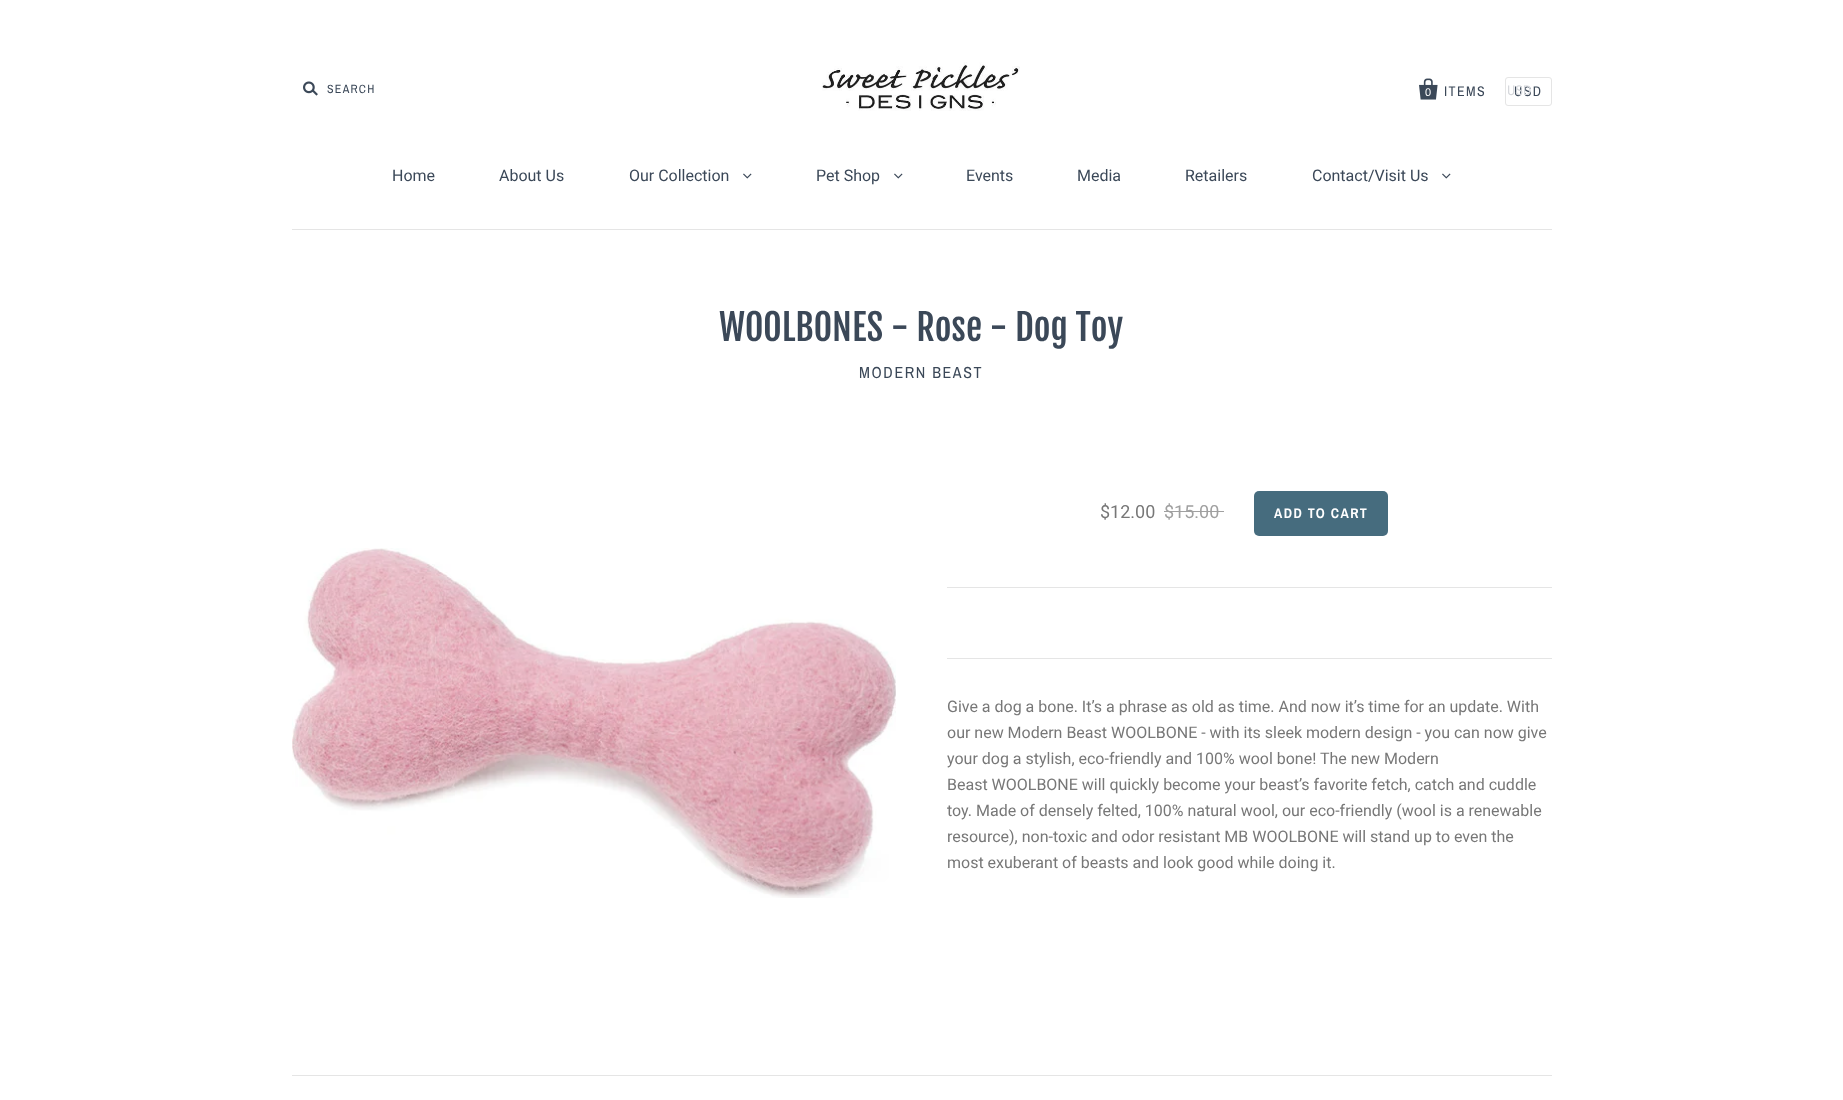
<svg xmlns="http://www.w3.org/2000/svg" width="1843" height="1100" viewBox="0 0 1843 1100">
  <rect width="100%" height="100%" fill="#fff"/>
  <path d="M292 229h1260v1H292z" fill="#e5e5e5"/>
  <image x="303" y="81" width="15" height="15" href="img/1.png"/>
  <image x="822" y="62" width="198" height="49" href="img/2.png"/>
  <image x="1419" y="78" width="19" height="22" href="img/3.png"/>
  <rect x="1505.5" y="77.5" width="46" height="28" rx="2.5" fill="none" stroke="#e5e5e5"/>
  <image x="743" y="173" width="9" height="6" href="img/4.png"/>
  <image x="894" y="173" width="9" height="6" href="img/4.png"/>
  <image x="1442" y="173" width="9" height="6" href="img/4.png"/>
  <path d="M1164 511h60v1H1164z" fill="#a0a0a0"/>
  <rect x="1254" y="491" width="134" height="45" rx="5" fill="#466c7e"/>
  <image x="292" y="548" width="604" height="350" href="img/5.png"/>
  <path d="M947 587h605v1H947z" fill="#e5e5e5"/>
  <path d="M947 658h605v1H947z" fill="#e5e5e5"/>
  <path d="M292 1075h1260v1H292z" fill="#e5e5e5"/>
  <text x="327" y="93" font-family="Archivo Narrow" font-size="12" letter-spacing="1.25" fill="#3b4858">SEARCH</text>
  <text x="1444" y="96" font-family="Archivo Narrow" font-size="14" letter-spacing="1.4" fill="#3b4858">ITEMS</text>
  <text x="1425" y="96" font-family="Liberation Sans" font-size="11" letter-spacing="1.4" fill="#fff">0</text>
  <text x="1514" y="96" font-family="Archivo Narrow" font-size="14" letter-spacing="1.4" fill="#3b4858">USD</text>
  <text x="1507" y="95" font-family="Archivo Narrow" font-size="14" fill="#d6d8dc">USD</text>
  <g font-family="Roboto" font-size="16" fill="#3b4858">
    <text x="392" y="181">Home</text>
    <text x="499" y="181">About Us</text>
    <text x="629" y="181">Our Collection</text>
    <text x="816" y="181">Pet Shop</text>
    <text x="966" y="181">Events</text>
    <text x="1077" y="181">Media</text>
    <text x="1185" y="181">Retailers</text>
    <text x="1312" y="181">Contact/Visit Us</text>
  </g>
  <text x="719" y="341" font-family="Fjalla One" font-size="36" fill="#3b4858">WOOLBONES - Rose - Dog Toy</text>
  <text x="859" y="378" font-family="Archivo Narrow" font-size="16" letter-spacing="1.6" fill="#3b4858">MODERN BEAST</text>
  <text x="1100" y="518" font-family="Roboto" font-size="18" fill="#777">$12.00</text>
  <text x="1164" y="518" font-family="Roboto" font-size="18" fill="#a0a0a0">$15.00</text>
  <text x="1274" y="518" font-family="Archivo Narrow" font-size="14" font-weight="bold" letter-spacing="1.4" fill="#fff">ADD TO CART</text>
  <g font-family="Roboto" font-size="16" fill="#777">
    <text x="947" y="712">Give a dog a bone. It’s a phrase as old as time. And now it’s time for an update. With</text>
    <text x="947" y="738">our new Modern Beast WOOLBONE - with its sleek modern design - you can now give</text>
    <text x="947" y="764">your dog a stylish, eco-friendly and 100% wool bone! The new Modern</text>
    <text x="947" y="790">Beast WOOLBONE will quickly become your beast’s favorite fetch, catch and cuddle</text>
    <text x="947" y="816">toy. Made of densely felted, 100% natural wool, our eco-friendly (wool is a renewable</text>
    <text x="947" y="842">resource), non-toxic and odor resistant MB WOOLBONE will stand up to even the</text>
    <text x="947" y="868">most exuberant of beasts and look good while doing it.</text>
  </g>
</svg>
